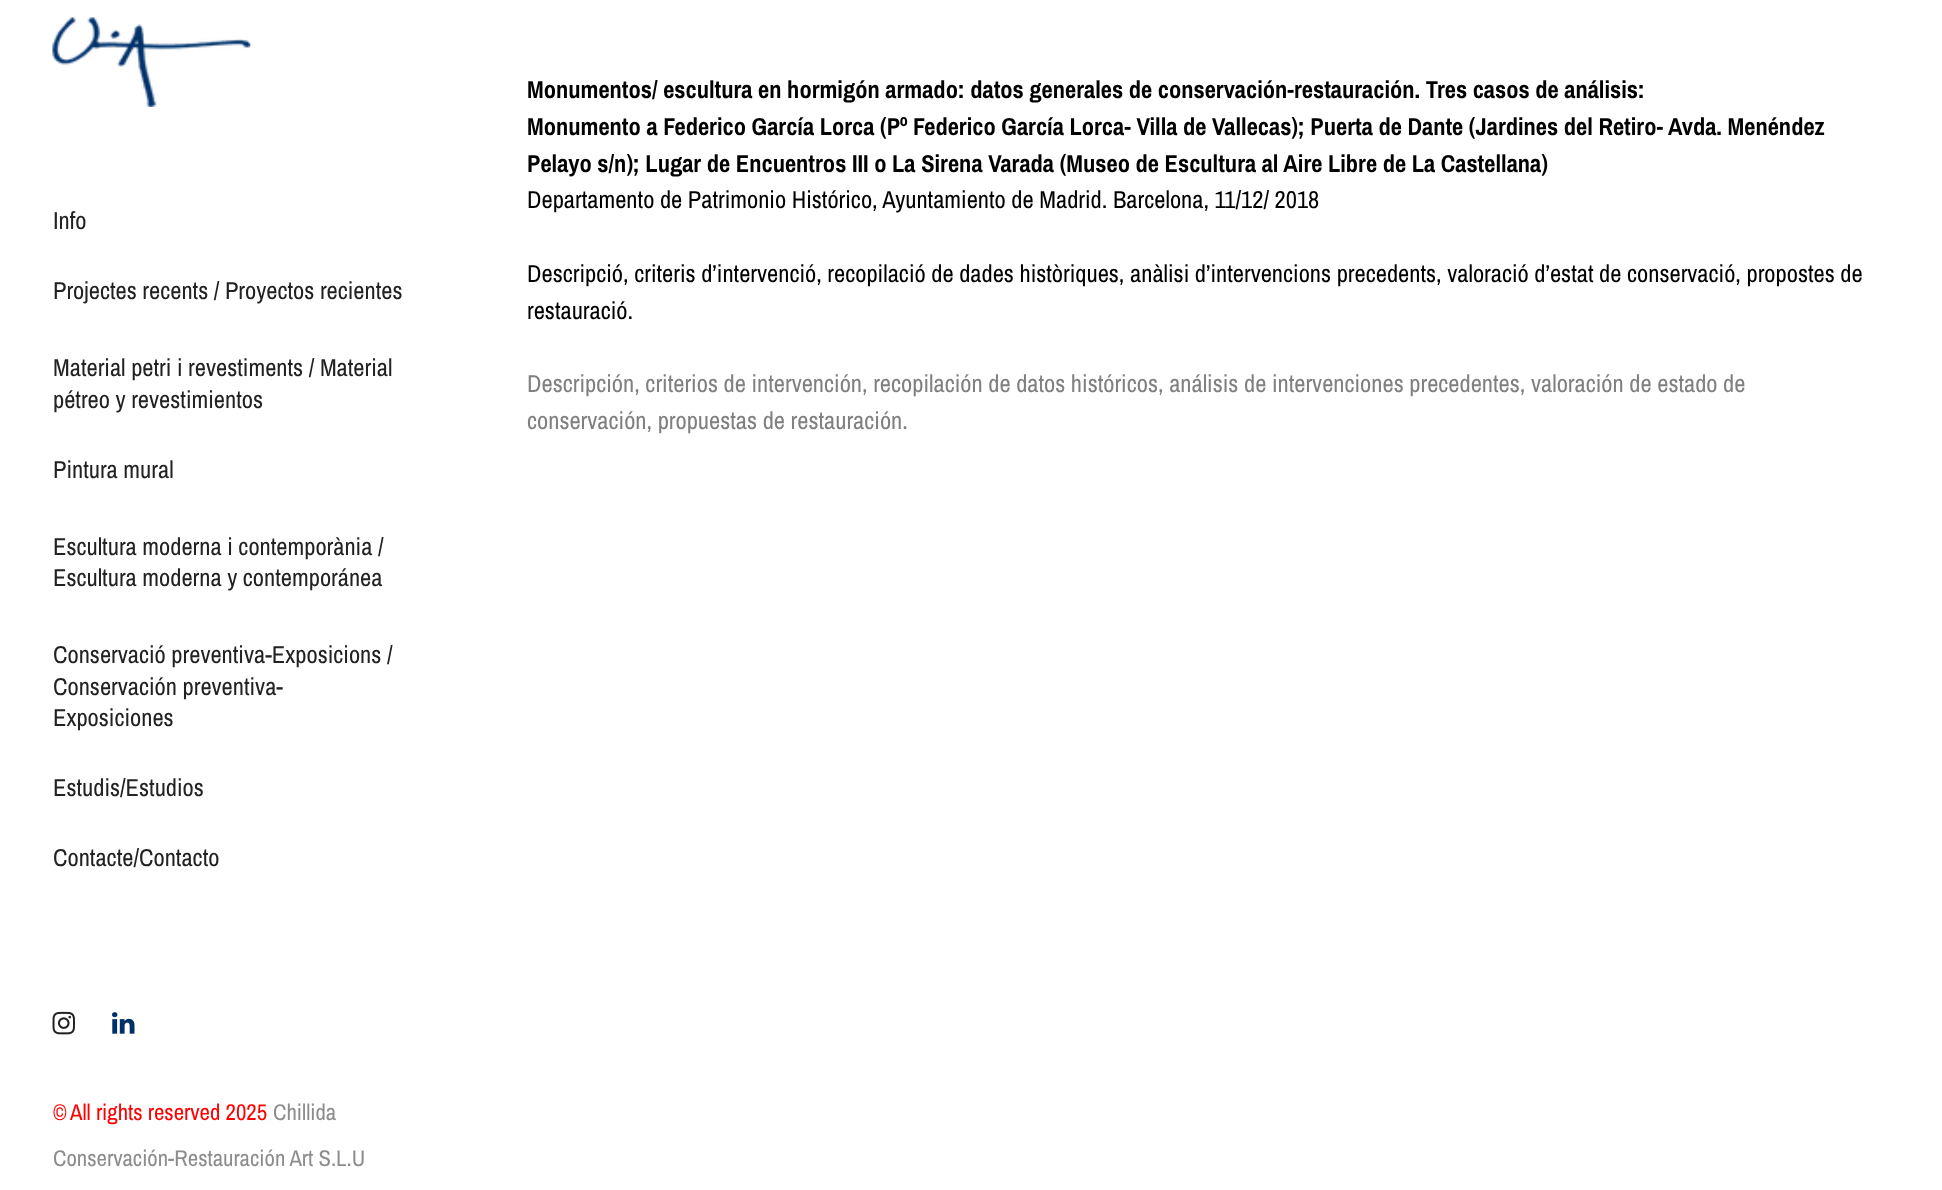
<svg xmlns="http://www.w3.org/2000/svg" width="1942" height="1190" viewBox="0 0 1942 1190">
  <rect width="100%" height="100%" fill="#fff"/>
  <image x="52" y="17" width="199" height="90" href="img/1.png"/>
  <image x="52" y="1011" width="23" height="24" href="img/2.png"/>
  <image x="112" y="1012" width="23" height="22" href="img/3.png"/>
  <g font-family="Archivo Narrow" font-size="24.5" fill="#222">
    <text x="53" y="229">Info</text>
    <text x="53" y="299">Projectes recents / Proyectos recientes</text>
    <text x="53" y="376">Material petri i revestiments / Material</text>
    <text x="53" y="408">pétreo y revestimientos</text>
    <text x="53" y="478">Pintura mural</text>
    <text x="53" y="555">Escultura moderna i contemporània /</text>
    <text x="53" y="586">Escultura moderna y contemporánea</text>
    <text x="53" y="663">Conservació preventiva-Exposicions /</text>
    <text x="53" y="695">Conservación preventiva-</text>
    <text x="53" y="726">Exposiciones</text>
    <text x="53" y="796">Estudis/Estudios</text>
    <text x="53" y="866">Contacte/Contacto</text>
  </g>
  <g font-family="Archivo Narrow" font-size="22.75" fill="#f00">
    <text x="53" y="1120">©</text>
    <text x="70" y="1120">All rights reserved 2025</text>
  </g>
  <g font-family="Archivo Narrow" font-size="22.75" fill="#8d8d8d">
    <text x="273" y="1120">Chillida</text>
    <text x="53" y="1166">Conservación-Restauración Art S.L.U</text>
  </g>
  <g font-family="Archivo Narrow" font-size="24.5" font-weight="bold" fill="#000">
    <text x="527" y="98">Monumentos/ escultura en hormigón armado: datos generales de conservación-restauración. Tres casos de análisis:</text>
    <text x="527" y="135">Monumento a Federico García Lorca (Pº Federico García Lorca- Villa de Vallecas); Puerta de Dante (Jardines del Retiro- Avda. Menéndez</text>
    <text x="527" y="172">Pelayo s/n); Lugar de Encuentros III o La Sirena Varada (Museo de Escultura al Aire Libre de La Castellana)</text>
  </g>
  <g font-family="Archivo Narrow" font-size="24.5" fill="#000">
    <text x="527" y="208">Departamento de Patrimonio Histórico, Ayuntamiento de Madrid. Barcelona, 11/12/ 2018</text>
    <text x="527" y="282">Descripció, criteris d’intervenció, recopilació de dades històriques, anàlisi d’intervencions precedents, valoració d’estat de conservació, propostes de</text>
    <text x="527" y="319">restauració.</text>
  </g>
  <g font-family="Archivo Narrow" font-size="24.5" fill="#808080">
    <text x="527" y="392">Descripción, criterios de intervención, recopilación de datos históricos, análisis de intervenciones precedentes, valoración de estado de</text>
    <text x="527" y="429">conservación, propuestas de restauración.</text>
  </g>
</svg>
